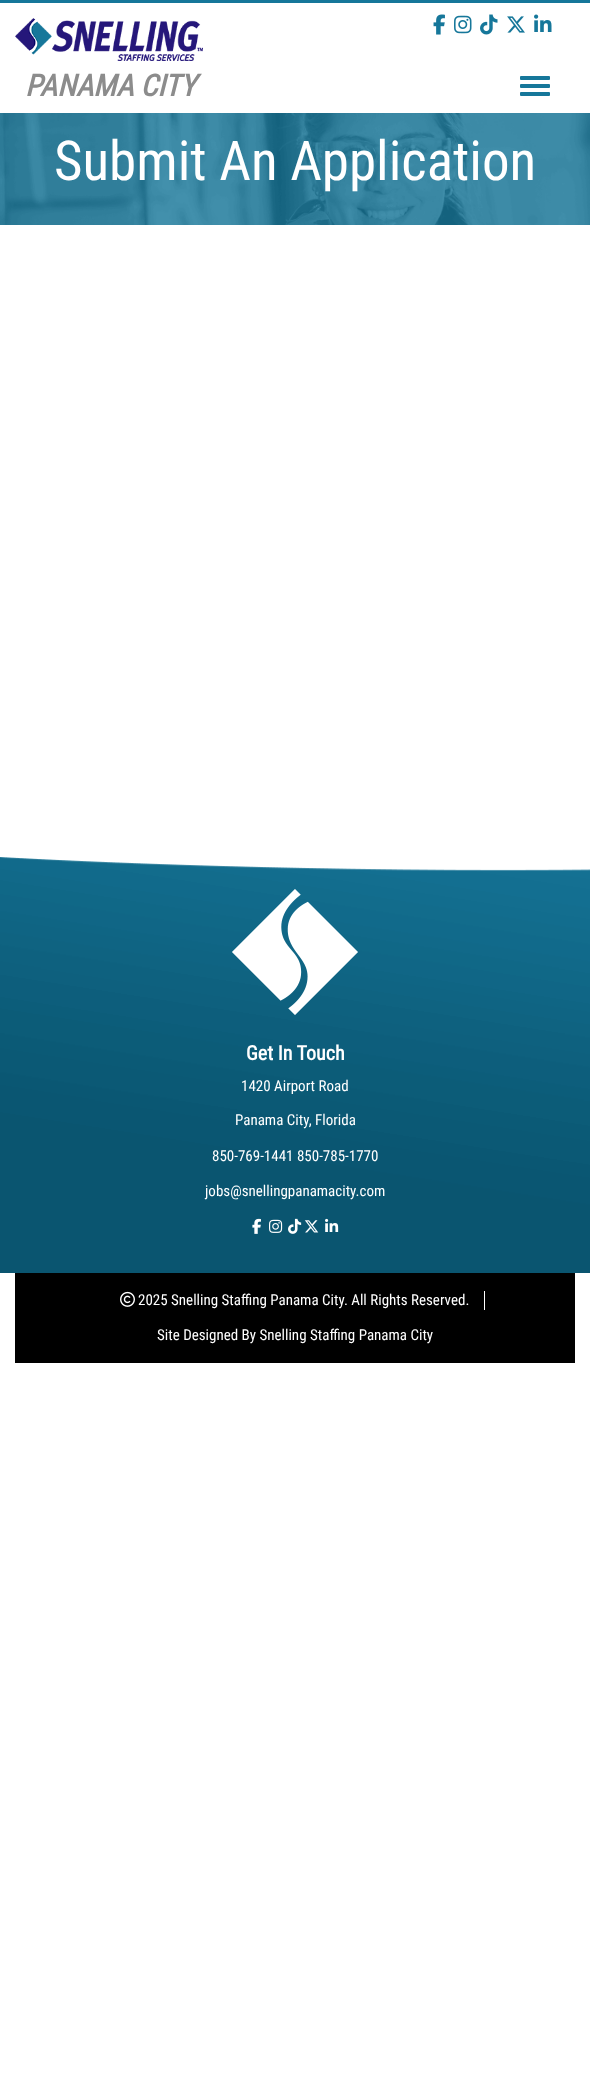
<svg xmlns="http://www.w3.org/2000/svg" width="590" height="2094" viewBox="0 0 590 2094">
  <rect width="100%" height="100%" fill="#fff"/>
  <path d="M0 0h590v3H0z" fill="#16779a"/>
  <image x="15" y="18" width="188" height="43" href="img/1.png"/>
  <image x="433" y="14" width="12" height="21" href="img/2.png"/>
  <image x="454" y="15" width="18" height="19" href="img/3.png"/>
  <image x="480" y="14" width="18" height="21" href="img/4.png"/>
  <image x="507" y="16" width="18" height="17" href="img/5.png"/>
  <image x="534" y="14" width="18" height="18" href="img/6.png"/>
  <rect x="520" y="76" width="30" height="4" rx="1" fill="#16779a"/>
  <rect x="520" y="84" width="30" height="4" rx="1" fill="#16779a"/>
  <rect x="520" y="92" width="30" height="4" rx="1" fill="#16779a"/>
  <image x="0" y="113" width="590" height="112" href="img/7.png"/>
  <image x="0" y="857" width="590" height="416" href="img/8.png"/>
  <image x="232" y="889" width="126" height="126" href="img/9.png"/>
  <image x="252" y="1218" width="9" height="16" href="img/10.png"/>
  <image x="269" y="1219" width="14" height="14" href="img/11.png"/>
  <image x="288" y="1218" width="14" height="16" href="img/12.png"/>
  <image x="304" y="1220" width="15" height="13" href="img/13.png"/>
  <image x="325" y="1218" width="14" height="14" href="img/14.png"/>
  <path d="M15 1273h560v90H15z" fill="#000"/>
  <path d="M484 1291h1v19H484z" fill="#fff"/>
  <image x="120" y="1291" width="15" height="16" href="img/15.png"/>
  <text x="25" y="96" font-family="Roboto Condensed" font-size="30" font-weight="bold" font-style="italic" fill="#8c8c8c">PANAMA CITY</text>
  <text x="54" y="180" font-family="Roboto Condensed" font-size="55" fill="#fff">Submit An Application</text>
  <text x="246" y="1060" font-family="Roboto Condensed" font-size="20" font-weight="bold" fill="#fff">Get In Touch</text>
  <g font-family="Roboto Condensed" font-size="15" fill="#fff">
    <text x="241" y="1091">1420 Airport Road</text>
    <text x="235" y="1125">Panama City, Florida</text>
    <text x="212" y="1161">850-769-1441 850-785-1770</text>
    <text x="205" y="1196">jobs@snellingpanamacity.com</text>
    <text x="138" y="1305">2025 Snelling Staffing Panama City. All Rights Reserved.</text>
    <text x="157" y="1340">Site Designed By Snelling Staffing Panama City</text>
  </g>
</svg>
